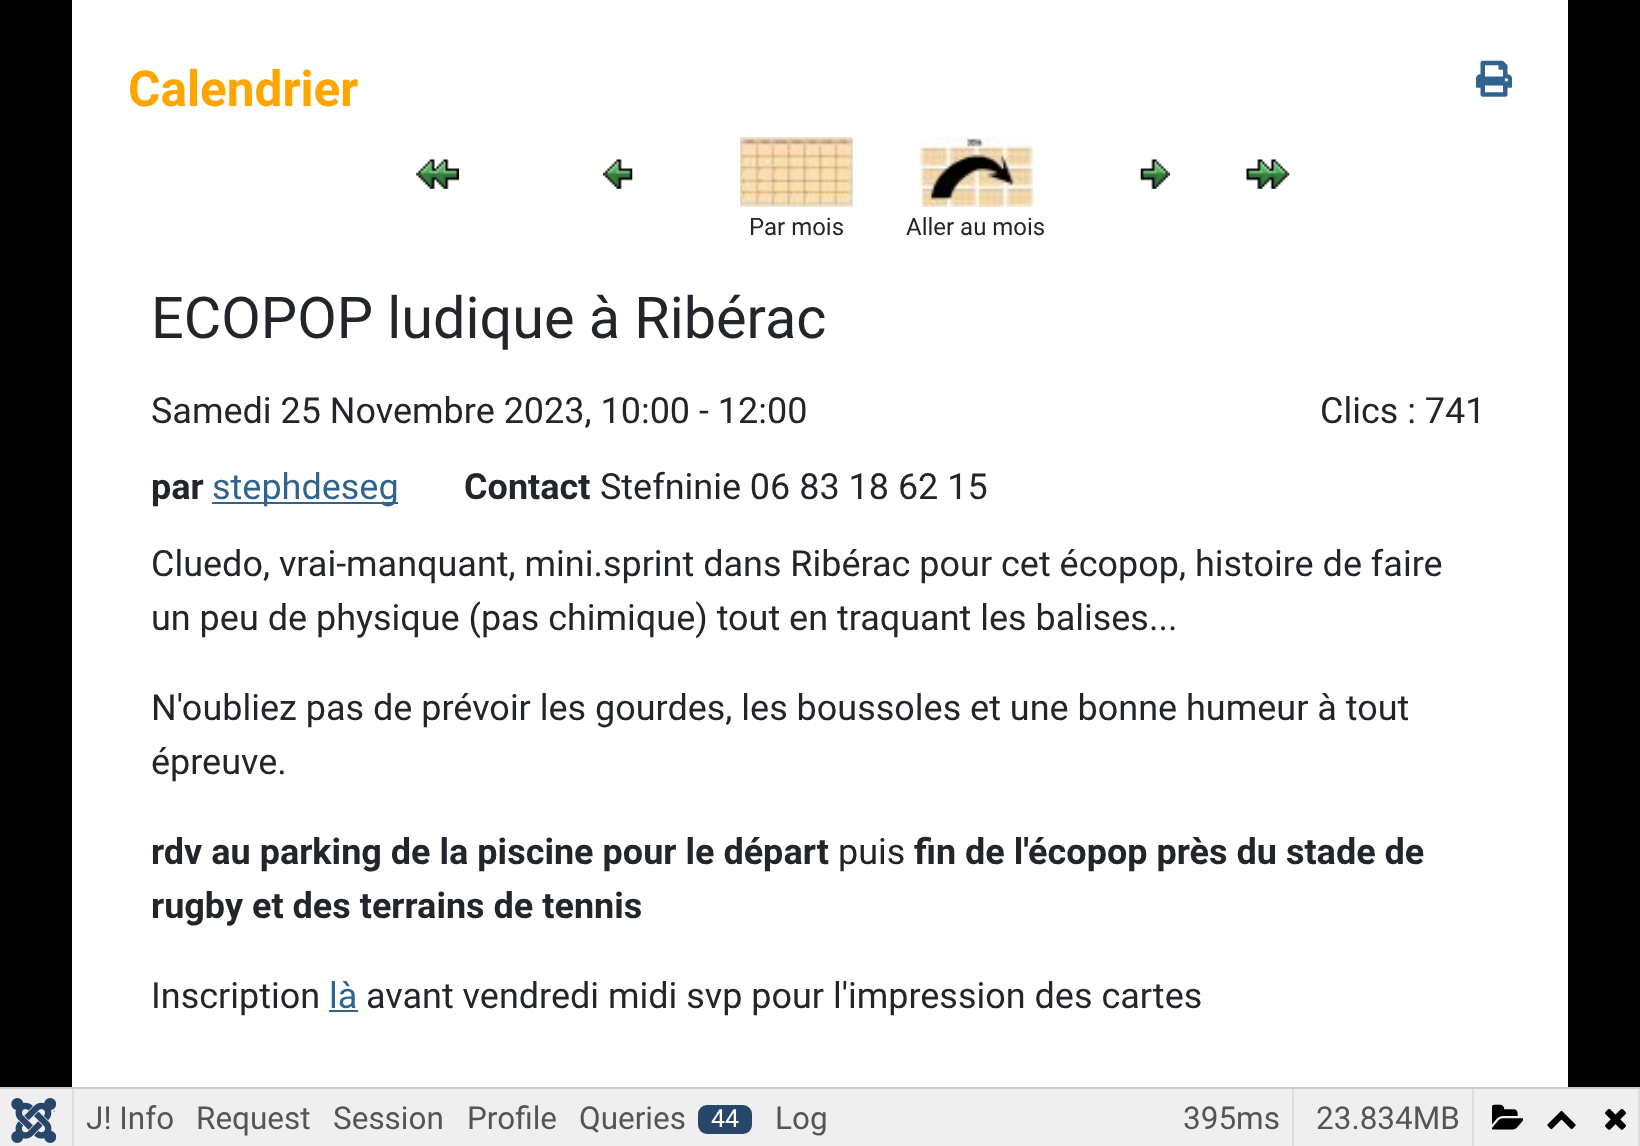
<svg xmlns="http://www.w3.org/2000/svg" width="1640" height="1146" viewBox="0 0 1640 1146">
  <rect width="100%" height="100%" fill="#000"/>
  <path d="M72 0h1496v1087H72z" fill="#fff"/>
  <image x="1476" y="60" width="36" height="37" href="img/1.png"/>
  <image x="416" y="159" width="43" height="30" href="img/2.png"/>
  <image x="603" y="159" width="30" height="30" href="img/3.png"/>
  <image x="740" y="137" width="113" height="70" href="img/4.png"/>
  <image x="920" y="137" width="113" height="70" href="img/5.png"/>
  <image x="1140" y="159" width="30" height="30" href="img/6.png"/>
  <image x="1246" y="159" width="44" height="30" href="img/7.png"/>
  <path d="M212 502h186v2H212z" fill="#30638d"/>
  <path d="M329 1010h29v2H329z" fill="#30638d"/>
  <path d="M0 1087h1640v2H0z" fill="#ccc"/>
  <path d="M74 1089h1564v57H74z" fill="#efefef"/>
  <path d="M0 1089h72v57H0z" fill="#efefef"/>
  <image x="11" y="1098" width="45" height="45" href="img/8.png"/>
  <path d="M72 1089h2v57H72z" fill="#ddd"/>
  <rect x="698" y="1105" width="54" height="29" rx="9" fill="#28466a"/>
  <path d="M1292 1089h2v57H1292z" fill="#ddd"/>
  <path d="M1472 1089h2v57H1472z" fill="#ddd"/>
  <image x="1492" y="1104" width="31" height="26" href="img/9.png"/>
  <image x="1547" y="1111" width="29" height="19" href="img/10.png"/>
  <image x="1605" y="1109" width="21" height="21" href="img/11.png"/>
  <path d="M1638 1089h2v57H1638z" fill="#ddd"/>
  <text x="128" y="106" font-family="Roboto" font-size="49.5" font-weight="bold" fill="#ffa500">Calendrier</text>
  <g font-family="Roboto" font-size="24" fill="#22262a">
    <text x="749" y="235">Par mois</text>
    <text x="906" y="235">Aller au mois</text>
  </g>
  <text x="151" y="338" font-family="Roboto" font-size="57.6" fill="#22262a">ECOPOP ludique à Ribérac</text>
  <g font-family="Roboto" font-size="36" fill="#22262a">
    <text x="151" y="423">Samedi 25 Novembre 2023, 10:00 - 12:00</text>
    <text x="1320" y="423">Clics : 741</text>
  </g>
  <text x="151" y="499" font-family="Roboto" font-size="36" font-weight="bold" fill="#22262a">par</text>
  <text x="212" y="499" font-family="Roboto" font-size="36" fill="#30638d">stephdeseg</text>
  <text x="464" y="499" font-family="Roboto" font-size="36" font-weight="bold" fill="#22262a">Contact</text>
  <g font-family="Roboto" font-size="36" fill="#22262a">
    <text x="600" y="499">Stefninie 06 83 18 62 15</text>
    <text x="151" y="576">Cluedo, vrai-manquant, mini.sprint dans Ribérac pour cet écopop, histoire de faire</text>
    <text x="151" y="630">un peu de physique (pas chimique) tout en traquant les balises...</text>
    <text x="151" y="720">N'oubliez pas de prévoir les gourdes, les boussoles et une bonne humeur à tout</text>
    <text x="151" y="774">épreuve.</text>
  </g>
  <text x="151" y="864" font-family="Roboto" font-size="36" font-weight="bold" fill="#22262a">rdv au parking de la piscine pour le départ</text>
  <text x="838" y="864" font-family="Roboto" font-size="36" fill="#22262a">puis</text>
  <g font-family="Roboto" font-size="36" font-weight="bold" fill="#22262a">
    <text x="914" y="864">fin de l'écopop près du stade de</text>
    <text x="151" y="918">rugby et des terrains de tennis</text>
  </g>
  <text x="151" y="1008" font-family="Roboto" font-size="36" fill="#22262a">Inscription</text>
  <text x="329" y="1008" font-family="Roboto" font-size="36" fill="#30638d">là</text>
  <text x="366" y="1008" font-family="Roboto" font-size="36" fill="#22262a">avant vendredi midi svp pour l'impression des cartes</text>
  <g font-family="Roboto" font-size="31.5" fill="#555">
    <text x="86" y="1129">J! Info</text>
    <text x="196" y="1129">Request</text>
    <text x="333" y="1129">Session</text>
    <text x="467" y="1129">Profile</text>
    <text x="579" y="1129">Queries</text>
  </g>
  <text x="711" y="1127" font-family="Roboto" font-size="25" fill="#fff">44</text>
  <g font-family="Roboto" font-size="31.5" fill="#555">
    <text x="775" y="1129">Log</text>
    <text x="1183" y="1129">395ms</text>
    <text x="1316" y="1129">23.834MB</text>
  </g>
</svg>
